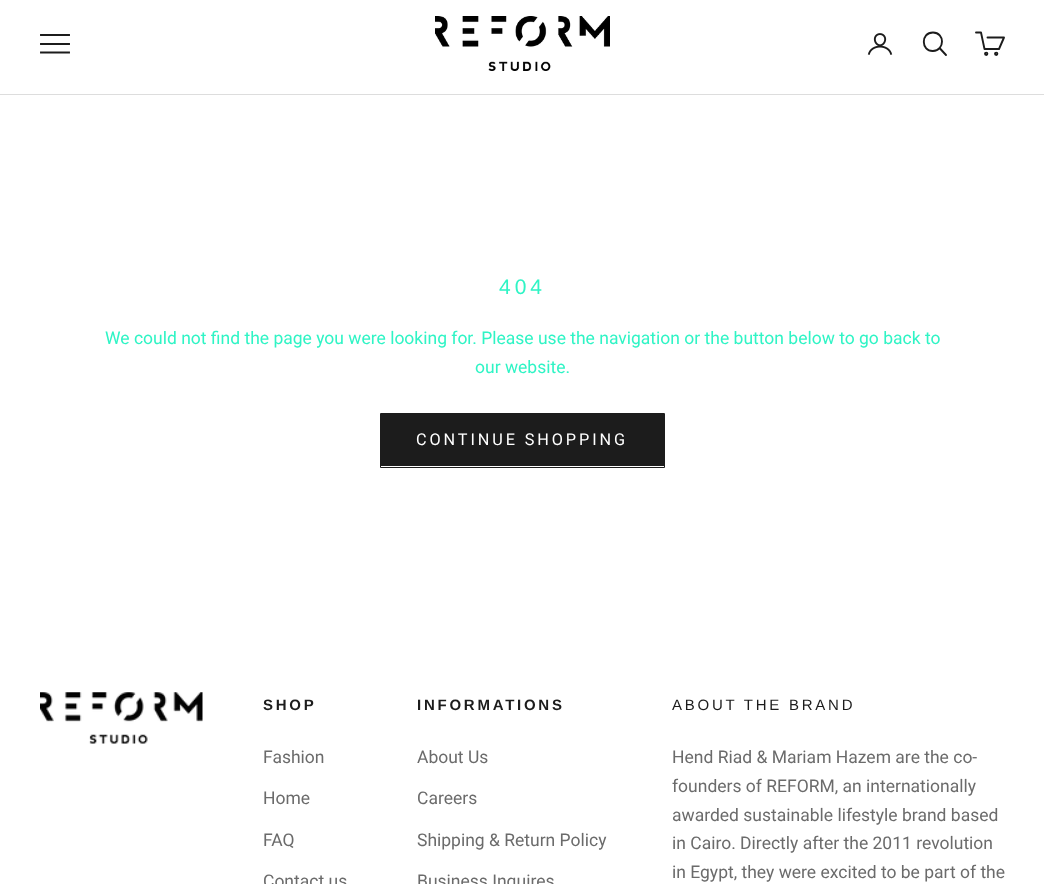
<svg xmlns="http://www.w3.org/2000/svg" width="1044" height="884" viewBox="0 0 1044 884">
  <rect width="100%" height="100%" fill="#fff"/>
  <path d="M0 94h1044v1H0z" fill="#ddd"/>
  <path d="M41 52.5H69M41 44H69M41 35H69" fill="none" stroke="#1c1c1c" stroke-width="1.9" stroke-linecap="square"/>
  <image x="435" y="16" width="175" height="55" href="img/1.png"/>
  <image x="867" y="33" width="26" height="22" href="img/2.png"/>
  <path d="M933 32.5C920.5 32.5 921 51.5 933 51C945 50.5 945 32.5 933 32.5Z" fill="none" stroke="#1c1c1c" stroke-width="1.9"/>
  <path d="M940 48.5L946 55" fill="none" stroke="#1c1c1c" stroke-width="1.9" stroke-linecap="round"/>
  <path d="M987.5 37.5H1004L999 49H984.5L981 32.5H976" fill="none" stroke="#1c1c1c" stroke-width="1.9" stroke-linecap="round" stroke-linejoin="round"/>
  <circle cx="986.2" cy="53.8" r="1.2" fill="none" stroke="#1c1c1c" stroke-width="1.9"/>
  <circle cx="996.2" cy="53.8" r="1.2" fill="none" stroke="#1c1c1c" stroke-width="1.9"/>
  <path d="M381 414h283v52H381z" fill="#1c1c1c"/>
  <path d="M380.5 413.5h284v54H380.5z" fill="none" stroke="#1c1c1c"/>
  <image x="40" y="692" width="163" height="52" href="img/3.png"/>
  <text x="499" y="294" font-family="Liberation Sans" font-size="21" letter-spacing="4" fill="#2ff4c5">404</text>
  <g font-family="Roboto" font-size="17.5" fill="#2ff4c5">
    <text x="105" y="344">We could not find the page you were looking for. Please use the navigation or the button below to go back to</text>
    <text x="475" y="373">our website.</text>
  </g>
  <text x="416" y="445" font-family="Roboto" font-size="16.25" letter-spacing="2.9" fill="#fff">CONTINUE SHOPPING</text>
  <text x="263" y="710" font-family="Liberation Sans" font-size="15" font-weight="bold" letter-spacing="2.75" fill="#1c1c1c">SHOP</text>
  <g font-family="Roboto" font-size="17.5" fill="#6b6b6b">
    <text x="263" y="763">Fashion</text>
    <text x="263" y="804">Home</text>
    <text x="263" y="846">FAQ</text>
    <text x="263" y="887">Contact us</text>
  </g>
  <text x="417" y="710" font-family="Liberation Sans" font-size="15" font-weight="bold" letter-spacing="2.75" fill="#1c1c1c">INFORMATIONS</text>
  <g font-family="Roboto" font-size="17.5" fill="#6b6b6b">
    <text x="417" y="763">About Us</text>
    <text x="417" y="804">Careers</text>
    <text x="417" y="846">Shipping &amp; Return Policy</text>
    <text x="417" y="887">Business Inquires</text>
  </g>
  <text x="672" y="710" font-family="Liberation Sans" font-size="15" letter-spacing="2.75" fill="#1c1c1c">ABOUT THE BRAND</text>
  <g font-family="Roboto" font-size="17.5" fill="#6b6b6b">
    <text x="672" y="763">Hend Riad &amp; Mariam Hazem are the co-</text>
    <text x="672" y="792">founders of REFORM, an internationally</text>
    <text x="672" y="821">awarded sustainable lifestyle brand based</text>
    <text x="672" y="849">in Cairo. Directly after the 2011 revolution</text>
    <text x="672" y="878">in Egypt, they were excited to be part of the</text>
  </g>
</svg>
